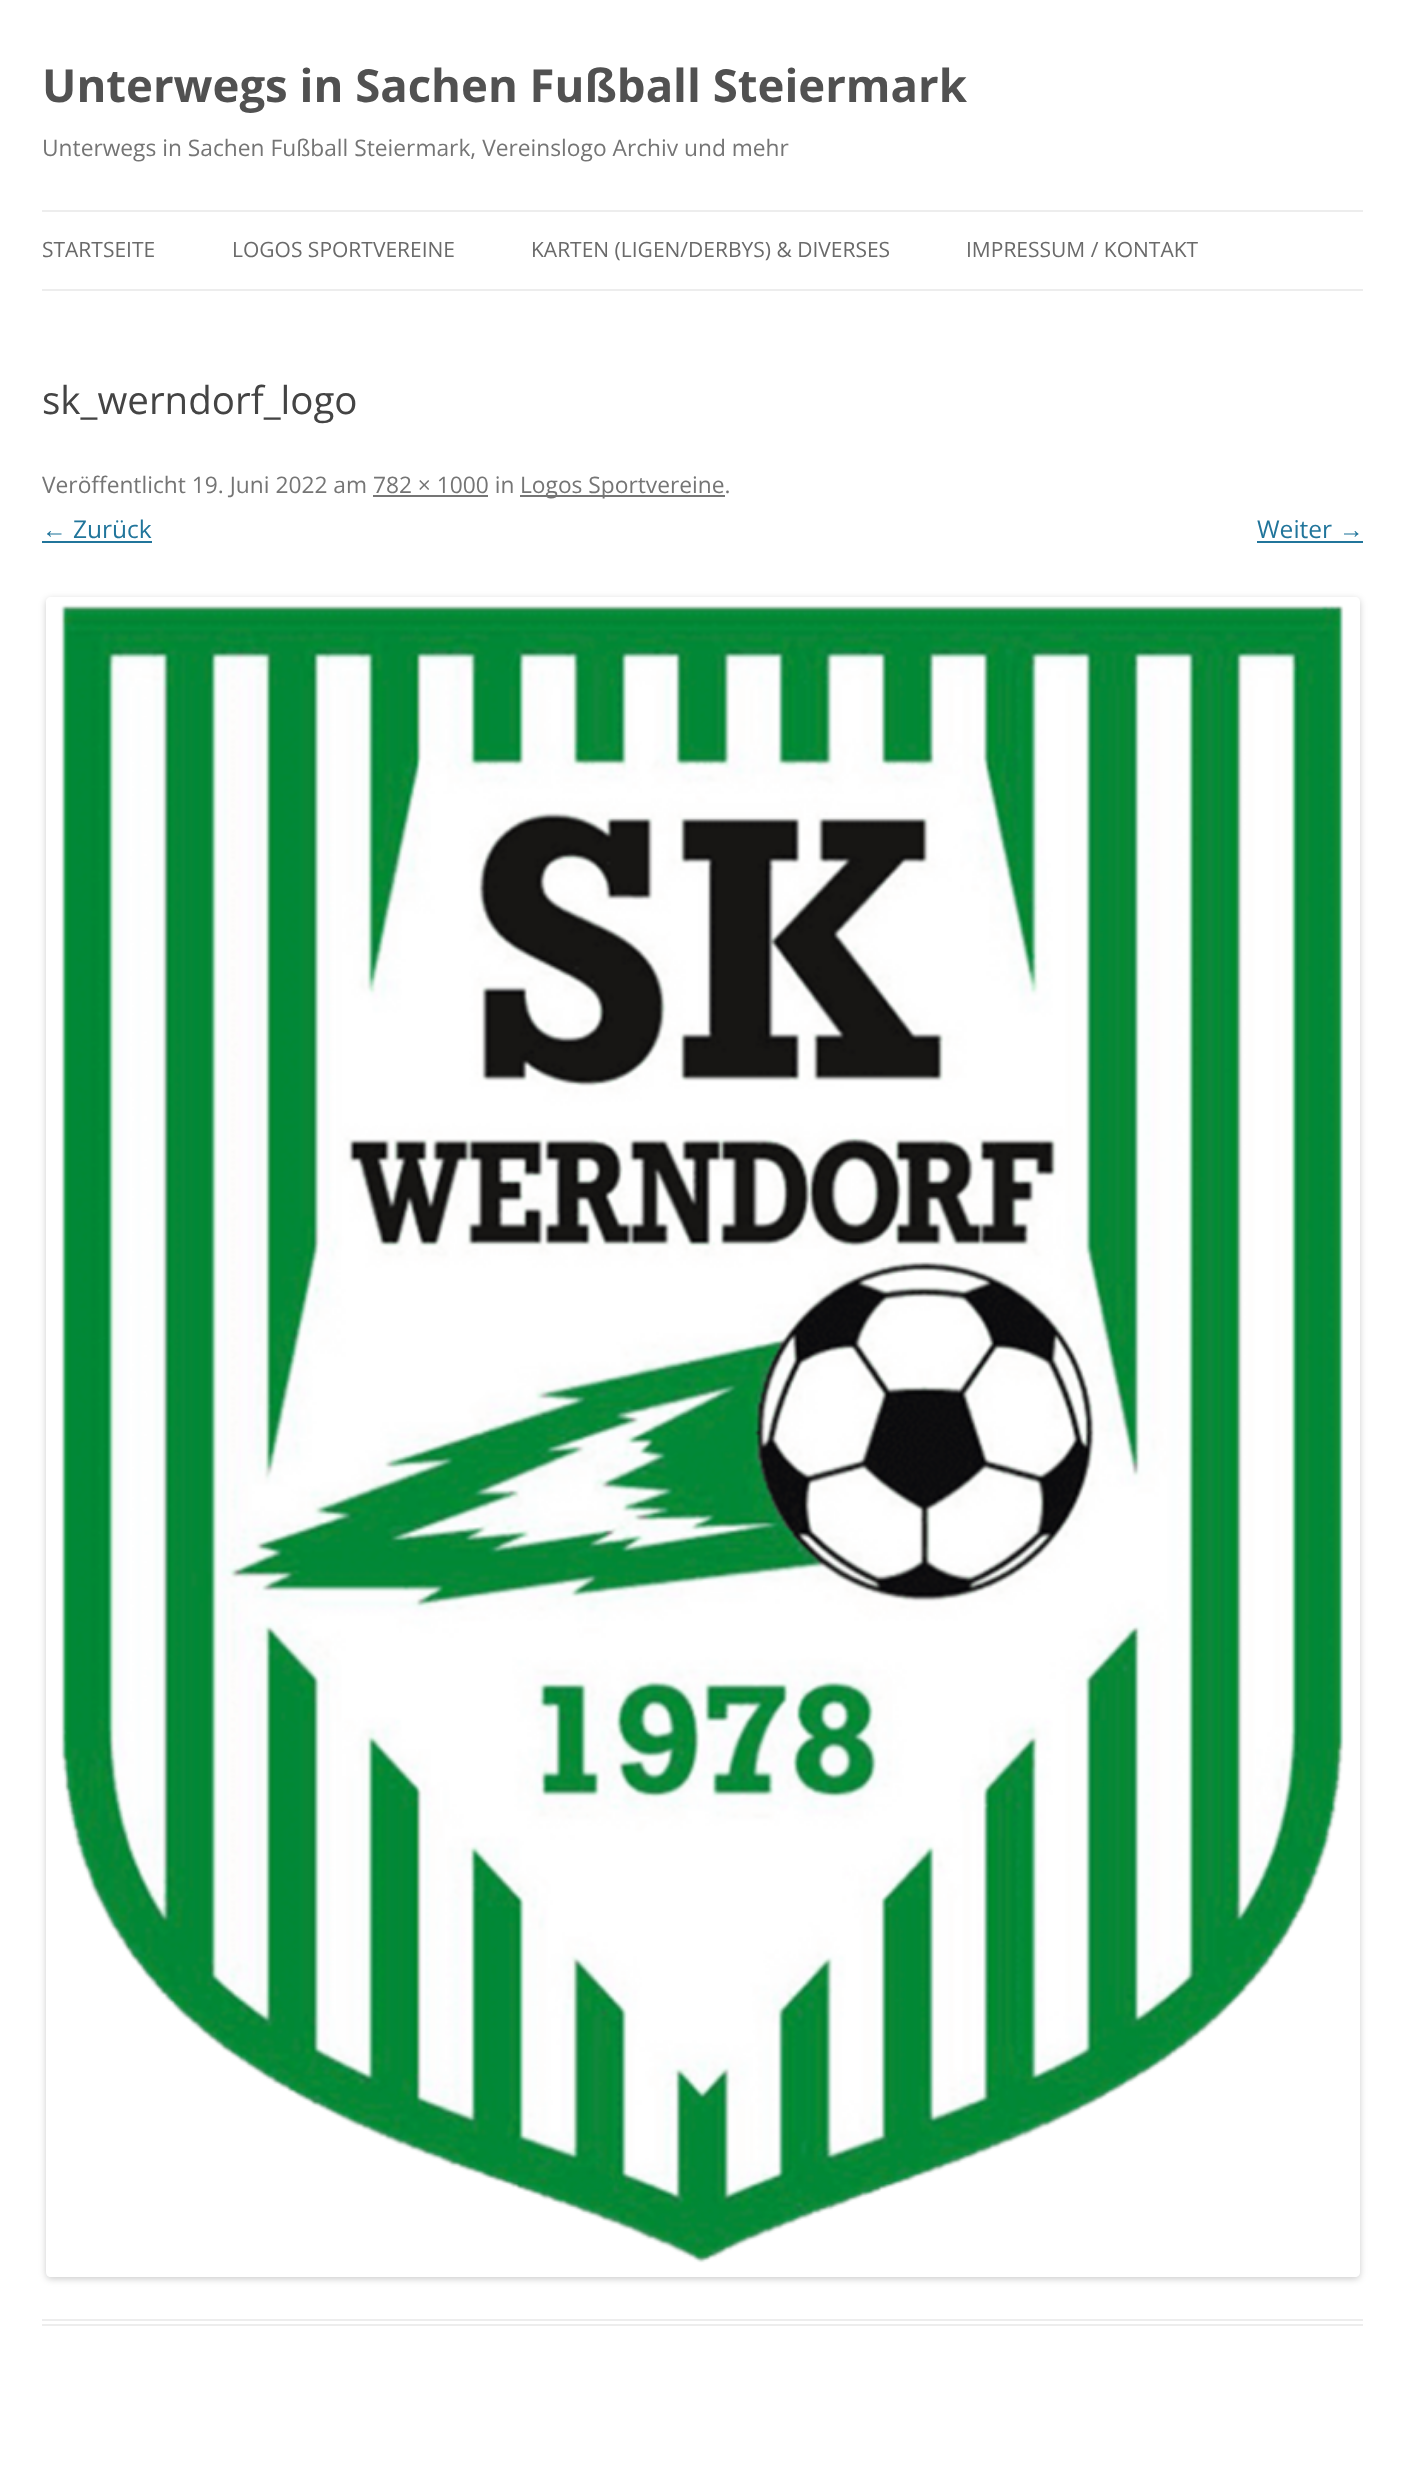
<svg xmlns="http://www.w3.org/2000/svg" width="1404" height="2473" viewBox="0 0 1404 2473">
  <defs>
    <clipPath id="clip1"><path d="M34 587H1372V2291H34ZM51 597H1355C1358 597 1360 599 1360 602V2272C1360 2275 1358 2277 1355 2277H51C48 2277 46 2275 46 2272V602C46 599 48 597 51 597Z" clip-rule="evenodd"/></clipPath>
  </defs>
  <rect width="100%" height="100%" fill="#fff"/>
  <path d="M42 210h1321v2H42z" fill="#ededed"/>
  <path d="M42 289h1321v2H42z" fill="#ededed"/>
  <path d="M42 2319h1321v2H42z" fill="#ededed"/>
  <path d="M42 2324h1321v2H42z" fill="#ededed"/>
  <path d="M520 495h205v2H520z" fill="#757575"/>
  <path d="M373 495h115v2H373z" fill="#757575"/>
  <path d="M42 541h110v2H42z" fill="#21759b"/>
  <path d="M1257 541h106v2H1257z" fill="#21759b"/>
  <g clip-path="url(#clip1)">
    <rect x="46" y="599" width="1314" height="1680" rx="5" fill="#00000033" filter="blur(3.5px)"/>
  </g>
  <image x="60" y="605" width="1284" height="1658" href="img/1.png"/>
  <text x="42" y="102" font-family="Open Sans" font-size="45.5" font-weight="bold" fill="#515151">Unterwegs in Sachen Fußball Steiermark</text>
  <text x="42" y="156" font-family="Open Sans" font-size="22.75" fill="#757575">Unterwegs in Sachen Fußball Steiermark, Vereinslogo Archiv und mehr</text>
  <g font-family="Open Sans" font-size="21" fill="#6a6a6a">
    <text x="42" y="257">STARTSEITE</text>
    <text x="232" y="257">LOGOS SPORTVEREINE</text>
    <text x="531" y="257">KARTEN (LIGEN/DERBYS) &amp; DIVERSES</text>
    <text x="966" y="257">IMPRESSUM / KONTAKT</text>
  </g>
  <text x="42" y="414" font-family="Open Sans" font-size="38.5" fill="#444">sk_werndorf_logo</text>
  <g font-family="Open Sans" font-size="22.75" fill="#757575">
    <text x="42" y="493">Veröffentlicht 19. Juni 2022 am 782 × 1000 in</text>
    <text x="520" y="493">Logos Sportvereine.</text>
  </g>
  <text x="42" y="538" font-family="Liberation Sans" font-size="24.5" fill="#21759b">←</text>
  <g font-family="Open Sans" font-size="24.5" fill="#21759b">
    <text x="73" y="538">Zurück</text>
    <text x="1257" y="538">Weiter</text>
  </g>
  <text x="1339" y="538" font-family="Liberation Sans" font-size="24.5" fill="#21759b">→</text>
</svg>
